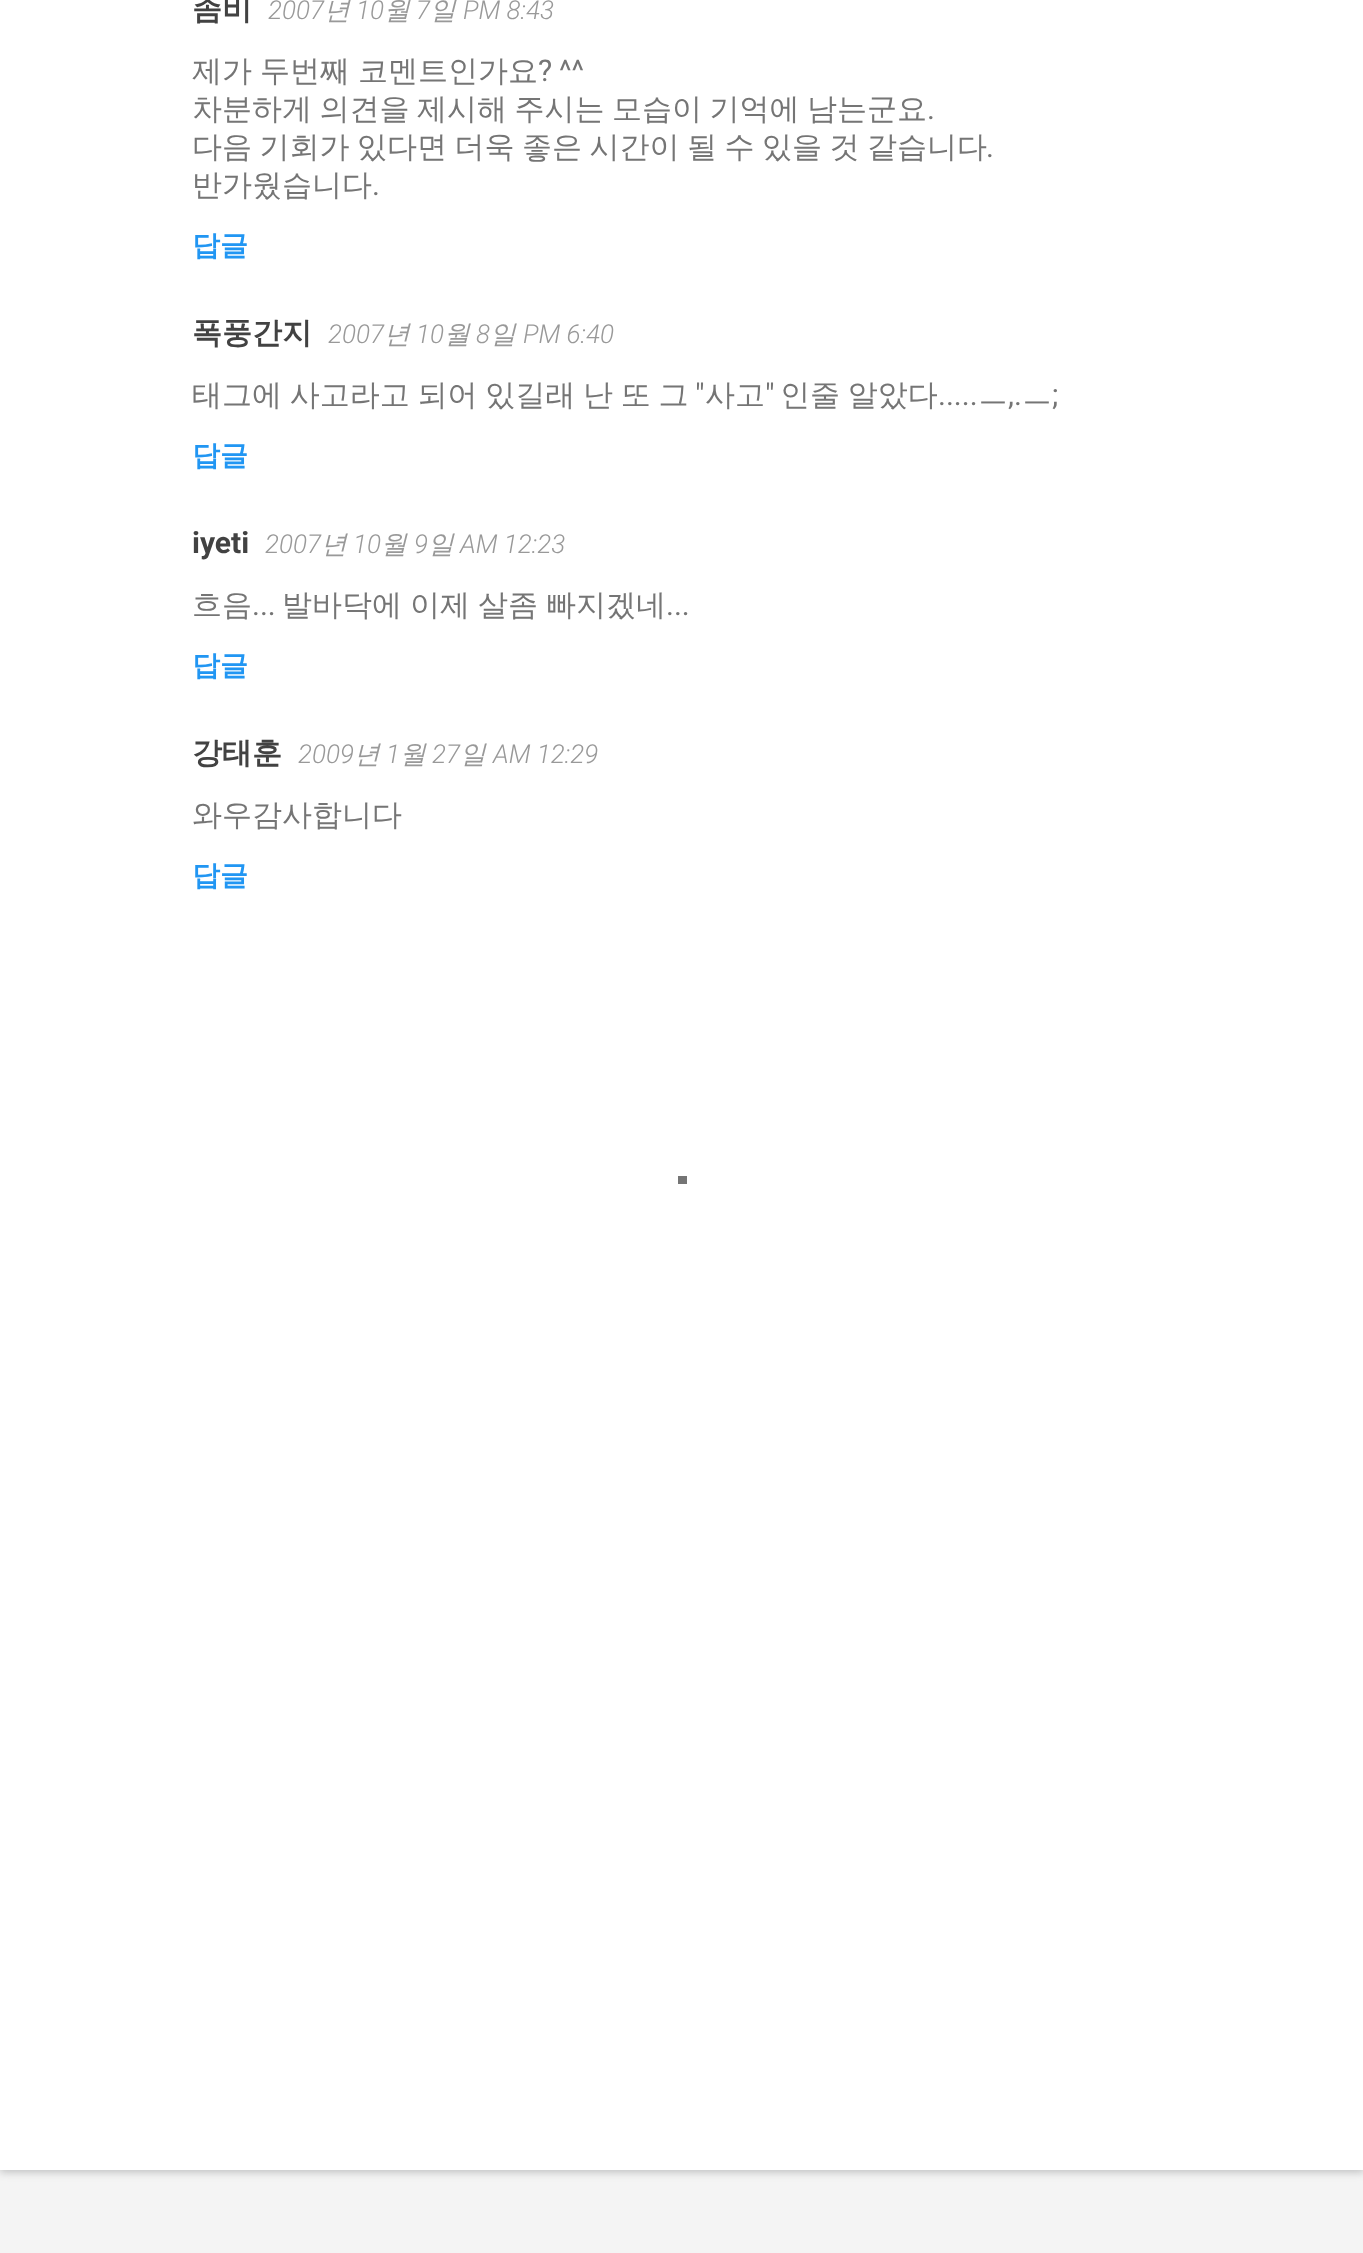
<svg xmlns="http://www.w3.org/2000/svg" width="1363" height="2253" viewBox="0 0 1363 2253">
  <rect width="100%" height="100%" fill="#f4f4f4"/>
  <path d="M0 -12h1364v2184H0z" fill="#3c40434d" filter="blur(4px)"/>
  <path d="M0 0h1363v2170H0z" fill="#fff"/>
  <path d="M678 1176h9v8H678z" fill="#757575"/>
  <text x="192" y="19" font-family="WenQuanYi Zen Hei" font-size="30" font-weight="bold" fill="#424242">좀비</text>
  <text x="268" y="19" font-family="Roboto" font-size="26" font-weight="300" font-style="italic" fill="#999">2007</text>
  <text x="324" y="19" font-family="WenQuanYi Zen Hei" font-size="26" font-weight="500" font-style="italic" fill="#999">년</text>
  <text x="356" y="19" font-family="Roboto" font-size="26" font-weight="300" font-style="italic" fill="#999">10</text>
  <text x="384" y="19" font-family="WenQuanYi Zen Hei" font-size="26" font-weight="500" font-style="italic" fill="#999">월</text>
  <text x="416" y="19" font-family="Roboto" font-size="26" font-weight="300" font-style="italic" fill="#999">7</text>
  <text x="430" y="19" font-family="WenQuanYi Zen Hei" font-size="26" font-weight="500" font-style="italic" fill="#999">일</text>
  <text x="463" y="19" font-family="Roboto" font-size="26" font-weight="300" font-style="italic" fill="#999">PM 8:43</text>
  <text x="192" y="81" word-spacing="-1" font-family="WenQuanYi Zen Hei" font-size="30" font-weight="500" fill="#757575">제가 두번째 코멘트인가요</text>
  <g font-family="Roboto" font-size="30" fill="#757575">
    <text x="538" y="81">?</text>
    <text x="559" y="81">^^</text>
  </g>
  <text x="192" y="119" word-spacing="-1.5" font-family="WenQuanYi Zen Hei" font-size="30" font-weight="500" fill="#757575">차분하게 의견을 제시해 주시는 모습이 기억에 남는군요</text>
  <text x="927" y="119" font-family="Roboto" font-size="30" fill="#757575">.</text>
  <text x="192" y="157" word-spacing="-1.5" font-family="WenQuanYi Zen Hei" font-size="30" font-weight="500" fill="#757575">다음 기회가 있다면 더욱 좋은 시간이 될 수 있을 것 같습니다</text>
  <text x="986" y="157" font-family="Roboto" font-size="30" fill="#757575">.</text>
  <text x="192" y="195" font-family="WenQuanYi Zen Hei" font-size="30" font-weight="500" fill="#757575">반가웠습니다</text>
  <text x="372" y="195" font-family="Roboto" font-size="30" fill="#757575">.</text>
  <text x="192" y="255" font-family="WenQuanYi Zen Hei" font-size="28" font-weight="bold" fill="#2196f3">답글</text>
  <text x="192" y="343" font-family="WenQuanYi Zen Hei" font-size="30" font-weight="bold" fill="#424242">폭풍간지</text>
  <text x="328" y="343" font-family="Roboto" font-size="26" font-weight="300" font-style="italic" fill="#999">2007</text>
  <text x="384" y="343" font-family="WenQuanYi Zen Hei" font-size="26" font-weight="500" font-style="italic" fill="#999">년</text>
  <text x="416" y="343" font-family="Roboto" font-size="26" font-weight="300" font-style="italic" fill="#999">10</text>
  <text x="444" y="343" font-family="WenQuanYi Zen Hei" font-size="26" font-weight="500" font-style="italic" fill="#999">월</text>
  <text x="476" y="343" font-family="Roboto" font-size="26" font-weight="300" font-style="italic" fill="#999">8</text>
  <text x="490" y="343" font-family="WenQuanYi Zen Hei" font-size="26" font-weight="500" font-style="italic" fill="#999">일</text>
  <text x="523" y="343" font-family="Roboto" font-size="26" font-weight="300" font-style="italic" fill="#999">PM 6:40</text>
  <text x="192" y="405" word-spacing="-1.25" font-family="WenQuanYi Zen Hei" font-size="30" font-weight="500" fill="#757575">태그에 사고라고 되어 있길래 난 또 그</text>
  <text x="695" y="405" font-family="Roboto" font-size="30" fill="#757575">"</text>
  <text x="705" y="405" font-family="WenQuanYi Zen Hei" font-size="30" font-weight="500" fill="#757575">사고</text>
  <text x="765" y="405" font-family="Roboto" font-size="30" fill="#757575">"</text>
  <text x="780" y="405" word-spacing="-1.25" font-family="WenQuanYi Zen Hei" font-size="30" font-weight="500" fill="#757575">인줄 알았다</text>
  <text x="938" y="405" font-family="Roboto" font-size="30" fill="#757575">.....</text>
  <text x="978" y="405" font-family="WenQuanYi Zen Hei" font-size="30" font-weight="500" fill="#757575">ㅡ</text>
  <text x="1008" y="405" font-family="Roboto" font-size="30" fill="#757575">,.</text>
  <text x="1022" y="405" font-family="WenQuanYi Zen Hei" font-size="30" font-weight="500" fill="#757575">ㅡ</text>
  <text x="1052" y="405" font-family="Roboto" font-size="30" fill="#757575">;</text>
  <text x="192" y="465" font-family="WenQuanYi Zen Hei" font-size="28" font-weight="bold" fill="#2196f3">답글</text>
  <text x="192" y="553" font-family="Roboto" font-size="30" font-weight="bold" fill="#424242">iyeti</text>
  <text x="265" y="553" font-family="Roboto" font-size="26" font-weight="300" font-style="italic" fill="#999">2007</text>
  <text x="321" y="553" font-family="WenQuanYi Zen Hei" font-size="26" font-weight="500" font-style="italic" fill="#999">년</text>
  <text x="353" y="553" font-family="Roboto" font-size="26" font-weight="300" font-style="italic" fill="#999">10</text>
  <text x="381" y="553" font-family="WenQuanYi Zen Hei" font-size="26" font-weight="500" font-style="italic" fill="#999">월</text>
  <text x="414" y="553" font-family="Roboto" font-size="26" font-weight="300" font-style="italic" fill="#999">9</text>
  <text x="428" y="553" font-family="WenQuanYi Zen Hei" font-size="26" font-weight="500" font-style="italic" fill="#999">일</text>
  <text x="460" y="553" font-family="Roboto" font-size="26" font-weight="300" font-style="italic" fill="#999">AM 12:23</text>
  <text x="192" y="615" font-family="WenQuanYi Zen Hei" font-size="30" font-weight="500" fill="#757575">흐음</text>
  <text x="252" y="615" font-family="Roboto" font-size="30" fill="#757575">...</text>
  <text x="282" y="615" word-spacing="-1" font-family="WenQuanYi Zen Hei" font-size="30" font-weight="500" fill="#757575">발바닥에 이제 살좀 빠지겠네</text>
  <text x="666" y="615" font-family="Roboto" font-size="30" fill="#757575">...</text>
  <text x="192" y="675" font-family="WenQuanYi Zen Hei" font-size="28" font-weight="bold" fill="#2196f3">답글</text>
  <text x="192" y="763" font-family="WenQuanYi Zen Hei" font-size="30" font-weight="bold" fill="#424242">강태훈</text>
  <text x="298" y="763" font-family="Roboto" font-size="26" font-weight="300" font-style="italic" fill="#999">2009</text>
  <text x="354" y="763" font-family="WenQuanYi Zen Hei" font-size="26" font-weight="500" font-style="italic" fill="#999">년</text>
  <text x="386" y="763" font-family="Roboto" font-size="26" font-weight="300" font-style="italic" fill="#999">1</text>
  <text x="400" y="763" font-family="WenQuanYi Zen Hei" font-size="26" font-weight="500" font-style="italic" fill="#999">월</text>
  <text x="432" y="763" font-family="Roboto" font-size="26" font-weight="300" font-style="italic" fill="#999">27</text>
  <text x="460" y="763" font-family="WenQuanYi Zen Hei" font-size="26" font-weight="500" font-style="italic" fill="#999">일</text>
  <text x="493" y="763" font-family="Roboto" font-size="26" font-weight="300" font-style="italic" fill="#999">AM 12:29</text>
  <text x="192" y="825" font-family="WenQuanYi Zen Hei" font-size="30" font-weight="500" fill="#757575">와우감사합니다</text>
  <text x="192" y="885" font-family="WenQuanYi Zen Hei" font-size="28" font-weight="bold" fill="#2196f3">답글</text>
</svg>
